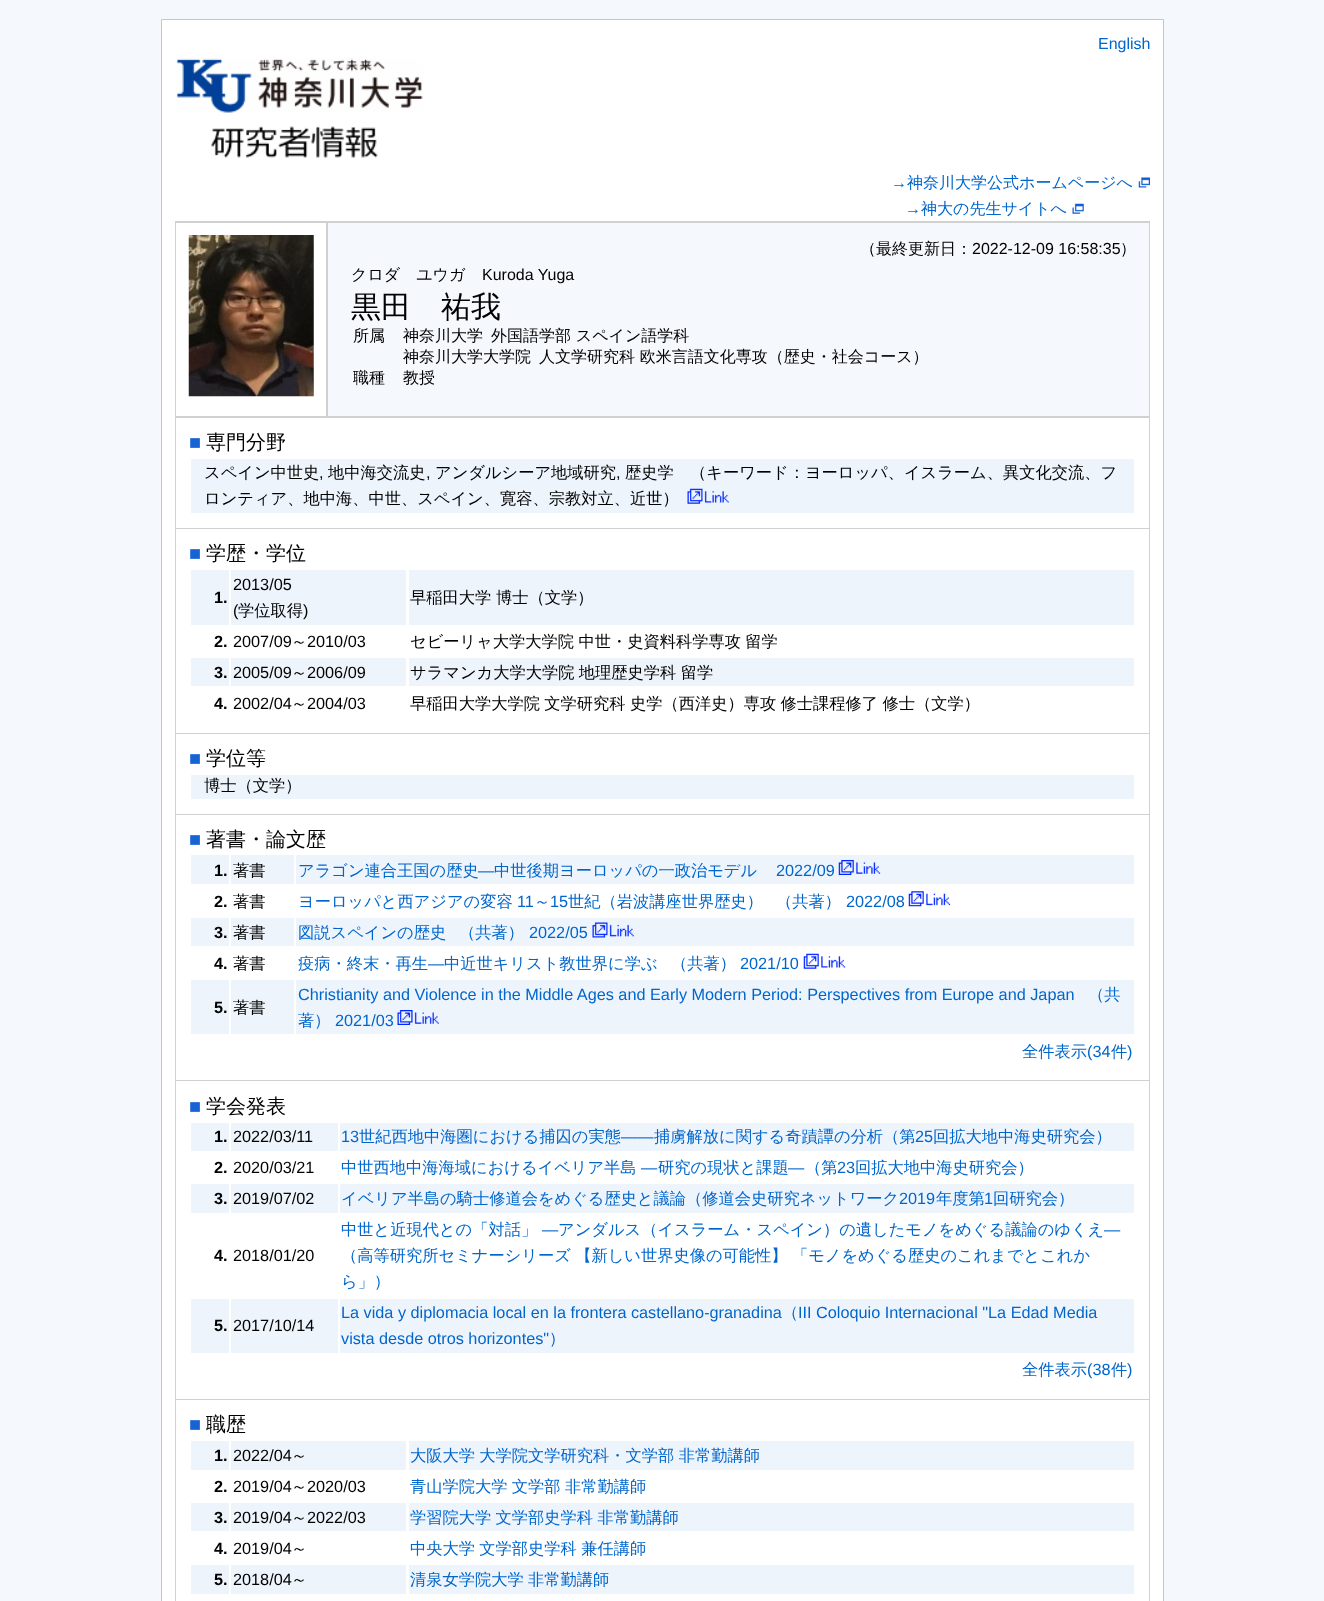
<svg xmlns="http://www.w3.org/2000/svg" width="1324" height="1601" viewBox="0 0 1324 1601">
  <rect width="100%" height="100%" fill="#f5f9fd"/>
  <path d="M161.5 19.5h1002v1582H161.5z" fill="#fff" stroke="#c6c6c6"/>
  <image x="176" y="58" width="247" height="55" href="img/1.png"/>
  <image x="211" y="126" width="167" height="32" href="img/2.png"/>
  <image x="1138" y="177" width="12" height="11" href="img/3.png"/>
  <image x="1072" y="203" width="12" height="11" href="img/4.png"/>
  <path d="M175 221h975v1380H175z" fill="#d0d0d0"/>
  <path d="M176 223h150v193H176z" fill="#fff"/>
  <image x="188" y="235" width="126" height="162" href="img/5.png"/>
  <path d="M328 223h821v193H328z" fill="#f5f9fd"/>
  <path d="M176 418h973v110H176z" fill="#fff"/>
  <path d="M191 459h943v54H191z" fill="#eef4fc"/>
  <image x="687" y="488" width="42" height="16" href="img/6.png"/>
  <path d="M176 529h973v204H176z" fill="#fff"/>
  <path d="M191 570h38v55H191z" fill="#eef4fc"/>
  <path d="M231 570h175v55H231z" fill="#eef4fc"/>
  <path d="M409 570h725v55H409z" fill="#eef4fc"/>
  <path d="M191 658h38v28H191z" fill="#eef4fc"/>
  <path d="M231 658h175v28H231z" fill="#eef4fc"/>
  <path d="M409 658h725v28H409z" fill="#eef4fc"/>
  <path d="M176 734h973v80H176z" fill="#fff"/>
  <path d="M191 775h943v24H191z" fill="#eef4fc"/>
  <path d="M176 815h973v265H176z" fill="#fff"/>
  <path d="M191 855h38v29H191z" fill="#eef4fc"/>
  <path d="M231 855h63v29H231z" fill="#eef4fc"/>
  <path d="M296 855h838v29H296z" fill="#eef4fc"/>
  <image x="838" y="860" width="43" height="15" href="img/7.png"/>
  <image x="908" y="891" width="43" height="16" href="img/8.png"/>
  <path d="M191 918h38v28H191z" fill="#eef4fc"/>
  <path d="M231 918h63v28H231z" fill="#eef4fc"/>
  <path d="M296 918h838v28H296z" fill="#eef4fc"/>
  <image x="592" y="922" width="42" height="16" href="img/9.png"/>
  <image x="803" y="953" width="43" height="16" href="img/10.png"/>
  <path d="M191 980h38v54H191z" fill="#eef4fc"/>
  <path d="M231 980h63v54H231z" fill="#eef4fc"/>
  <path d="M296 980h838v54H296z" fill="#eef4fc"/>
  <image x="397" y="1010" width="42" height="15" href="img/11.png"/>
  <path d="M176 1081h973v318H176z" fill="#fff"/>
  <path d="M191 1123h38v28H191z" fill="#eef4fc"/>
  <path d="M231 1123h107v28H231z" fill="#eef4fc"/>
  <path d="M340 1123h794v28H340z" fill="#eef4fc"/>
  <path d="M191 1184h38v29H191z" fill="#eef4fc"/>
  <path d="M231 1184h107v29H231z" fill="#eef4fc"/>
  <path d="M340 1184h794v29H340z" fill="#eef4fc"/>
  <path d="M191 1299h38v54H191z" fill="#eef4fc"/>
  <path d="M231 1299h107v54H231z" fill="#eef4fc"/>
  <path d="M340 1299h794v54H340z" fill="#eef4fc"/>
  <path d="M176 1400h973v201H176z" fill="#fff"/>
  <path d="M191 1441h38v29H191z" fill="#eef4fc"/>
  <path d="M231 1441h175v29H231z" fill="#eef4fc"/>
  <path d="M409 1441h725v29H409z" fill="#eef4fc"/>
  <path d="M191 1503h38v28H191z" fill="#eef4fc"/>
  <path d="M231 1503h175v28H231z" fill="#eef4fc"/>
  <path d="M409 1503h725v28H409z" fill="#eef4fc"/>
  <path d="M191 1565h38v29H191z" fill="#eef4fc"/>
  <path d="M231 1565h175v29H231z" fill="#eef4fc"/>
  <path d="M409 1565h725v29H409z" fill="#eef4fc"/>
  <g font-family="Liberation Sans" font-size="16" fill="#06c">
    <text x="1098" y="49">English</text>
    <text x="891" y="188">→</text>
  </g>
  <text x="907" y="188" font-family="WenQuanYi Zen Hei" font-size="16" font-weight="500" fill="#06c">神奈川大学公式ホームページへ</text>
  <text x="905" y="214" font-family="Liberation Sans" font-size="16" fill="#06c">→</text>
  <text x="921" y="214" font-family="WenQuanYi Zen Hei" font-size="16" font-weight="500" fill="#06c">神大の先生サイトへ</text>
  <text x="860" y="254" font-family="WenQuanYi Zen Hei" font-size="16" font-weight="500" fill="#000">（最終更新日：</text>
  <text x="972" y="254" font-family="Liberation Sans" font-size="16" fill="#000">2022-12-09 16:58:35</text>
  <g font-family="WenQuanYi Zen Hei" font-size="16" font-weight="500" fill="#000">
    <text x="1120" y="254">）</text>
    <text x="351" y="280">クロダ　ユウガ</text>
  </g>
  <text x="482" y="280" font-family="Liberation Sans" font-size="16" fill="#000">Kuroda Yuga</text>
  <text x="351" y="317" font-family="WenQuanYi Zen Hei" font-size="30" font-weight="500" fill="#000">黒田　祐我</text>
  <g font-family="WenQuanYi Zen Hei" font-size="16" font-weight="500" fill="#000">
    <text x="353" y="341">所属</text>
    <text x="403" y="341">神奈川大学</text>
    <text x="491" y="341">外国語学部 スペイン語学科</text>
    <text x="403" y="362">神奈川大学大学院</text>
    <text x="539" y="362">人文学研究科 欧米言語文化専攻（歴史・社会コース）</text>
    <text x="353" y="383">職種</text>
    <text x="403" y="383">教授</text>
  </g>
  <text x="189" y="449" font-family="Liberation Sans" font-size="20" fill="#1663d4">■</text>
  <text x="206" y="449" font-family="WenQuanYi Zen Hei" font-size="20" font-weight="500" fill="#000">専門分野</text>
  <text x="204" y="478" font-family="WenQuanYi Zen Hei" font-size="16.25" font-weight="500" fill="#000">スペイン中世史</text>
  <text x="319" y="478" font-family="Liberation Sans" font-size="16.25" fill="#000">,</text>
  <text x="328" y="478" font-family="WenQuanYi Zen Hei" font-size="16.25" font-weight="500" fill="#000">地中海交流史</text>
  <text x="426" y="478" font-family="Liberation Sans" font-size="16.25" fill="#000">,</text>
  <text x="435" y="478" font-family="WenQuanYi Zen Hei" font-size="16.25" font-weight="500" fill="#000">アンダルシーア地域研究</text>
  <text x="616" y="478" font-family="Liberation Sans" font-size="16.25" fill="#000">,</text>
  <g font-family="WenQuanYi Zen Hei" font-size="16.25" font-weight="500" fill="#000">
    <text x="625" y="478">歴史学　（キーワード：ヨーロッパ、イスラーム、異文化交流、フ</text>
    <text x="204" y="504">ロンティア、地中海、中世、スペイン、寛容、宗教対立、近世）</text>
  </g>
  <text x="189" y="560" font-family="Liberation Sans" font-size="20" fill="#1663d4">■</text>
  <text x="206" y="560" font-family="WenQuanYi Zen Hei" font-size="20" font-weight="500" fill="#000">学歴・学位</text>
  <text x="214" y="603" font-family="Liberation Sans" font-size="16.25" font-weight="bold" fill="#000">1.</text>
  <g font-family="Liberation Sans" font-size="16.25" fill="#000">
    <text x="233" y="590">2013/05</text>
    <text x="233" y="616">(</text>
  </g>
  <text x="238" y="616" font-family="WenQuanYi Zen Hei" font-size="16.25" font-weight="500" fill="#000">学位取得</text>
  <text x="303" y="616" font-family="Liberation Sans" font-size="16.25" fill="#000">)</text>
  <g font-family="WenQuanYi Zen Hei" font-size="16.25" font-weight="500" fill="#000">
    <text x="410" y="603">早稲田大学</text>
    <text x="496" y="603">博士（文学）</text>
  </g>
  <text x="214" y="647" font-family="Liberation Sans" font-size="16.25" font-weight="bold" fill="#000">2.</text>
  <text x="233" y="647" font-family="Liberation Sans" font-size="16.25" fill="#000">2007/09</text>
  <text x="291" y="647" font-family="WenQuanYi Zen Hei" font-size="16.25" font-weight="500" fill="#000">～</text>
  <text x="307" y="647" font-family="Liberation Sans" font-size="16.25" fill="#000">2010/03</text>
  <text x="410" y="647" word-spacing="-0.5" font-family="WenQuanYi Zen Hei" font-size="16.25" font-weight="500" fill="#000">セビーリャ大学大学院 中世・史資料科学専攻 留学</text>
  <text x="214" y="678" font-family="Liberation Sans" font-size="16.25" font-weight="bold" fill="#000">3.</text>
  <text x="233" y="678" font-family="Liberation Sans" font-size="16.25" fill="#000">2005/09</text>
  <text x="291" y="678" font-family="WenQuanYi Zen Hei" font-size="16.25" font-weight="500" fill="#000">～</text>
  <text x="307" y="678" font-family="Liberation Sans" font-size="16.25" fill="#000">2006/09</text>
  <text x="410" y="678" word-spacing="-0.5" font-family="WenQuanYi Zen Hei" font-size="16.25" font-weight="500" fill="#000">サラマンカ大学大学院 地理歴史学科 留学</text>
  <text x="214" y="709" font-family="Liberation Sans" font-size="16.25" font-weight="bold" fill="#000">4.</text>
  <text x="233" y="709" font-family="Liberation Sans" font-size="16.25" fill="#000">2002/04</text>
  <text x="291" y="709" font-family="WenQuanYi Zen Hei" font-size="16.25" font-weight="500" fill="#000">～</text>
  <text x="307" y="709" font-family="Liberation Sans" font-size="16.25" fill="#000">2004/03</text>
  <text x="410" y="709" word-spacing="-0.5" font-family="WenQuanYi Zen Hei" font-size="16.25" font-weight="500" fill="#000">早稲田大学大学院 文学研究科 史学（西洋史）専攻 修士課程修了 修士（文学）</text>
  <text x="189" y="765" font-family="Liberation Sans" font-size="20" fill="#1663d4">■</text>
  <text x="206" y="765" font-family="WenQuanYi Zen Hei" font-size="20" font-weight="500" fill="#000">学位等</text>
  <text x="204" y="791" font-family="WenQuanYi Zen Hei" font-size="16.25" font-weight="500" fill="#000">博士（文学）</text>
  <text x="189" y="846" font-family="Liberation Sans" font-size="20" fill="#1663d4">■</text>
  <text x="206" y="846" font-family="WenQuanYi Zen Hei" font-size="20" font-weight="500" fill="#000">著書・論文歴</text>
  <text x="214" y="876" font-family="Liberation Sans" font-size="16.25" font-weight="bold" fill="#000">1.</text>
  <text x="233" y="876" font-family="WenQuanYi Zen Hei" font-size="16.25" font-weight="500" fill="#000">著書</text>
  <text x="298" y="876" font-family="WenQuanYi Zen Hei" font-size="16.25" font-weight="500" fill="#06c">アラゴン連合王国の歴史</text>
  <text x="478" y="876" font-family="Liberation Sans" font-size="16.25" fill="#06c">―</text>
  <text x="494" y="876" font-family="WenQuanYi Zen Hei" font-size="16.25" font-weight="500" fill="#06c">中世後期ヨーロッパの一政治モデル</text>
  <text x="776" y="876" font-family="Liberation Sans" font-size="16.25" fill="#06c">2022/09</text>
  <text x="214" y="907" font-family="Liberation Sans" font-size="16.25" font-weight="bold" fill="#000">2.</text>
  <text x="233" y="907" font-family="WenQuanYi Zen Hei" font-size="16.25" font-weight="500" fill="#000">著書</text>
  <text x="298" y="907" font-family="WenQuanYi Zen Hei" font-size="16.25" font-weight="500" fill="#06c">ヨーロッパと西アジアの変容</text>
  <text x="517" y="907" font-family="Liberation Sans" font-size="16.25" fill="#06c">11</text>
  <text x="534" y="907" font-family="WenQuanYi Zen Hei" font-size="16.25" font-weight="500" fill="#06c">～</text>
  <text x="550" y="907" font-family="Liberation Sans" font-size="16.25" fill="#06c">15</text>
  <g font-family="WenQuanYi Zen Hei" font-size="16.25" font-weight="500" fill="#06c">
    <text x="568" y="907">世紀（岩波講座世界歴史）</text>
    <text x="776" y="907">（共著）</text>
  </g>
  <text x="846" y="907" font-family="Liberation Sans" font-size="16.25" fill="#06c">2022/08</text>
  <text x="214" y="938" font-family="Liberation Sans" font-size="16.25" font-weight="bold" fill="#000">3.</text>
  <text x="233" y="938" font-family="WenQuanYi Zen Hei" font-size="16.25" font-weight="500" fill="#000">著書</text>
  <g font-family="WenQuanYi Zen Hei" font-size="16.25" font-weight="500" fill="#06c">
    <text x="298" y="938">図説スペインの歴史</text>
    <text x="459" y="938">（共著）</text>
  </g>
  <text x="529" y="938" font-family="Liberation Sans" font-size="16.25" fill="#06c">2022/05</text>
  <text x="214" y="969" font-family="Liberation Sans" font-size="16.25" font-weight="bold" fill="#000">4.</text>
  <text x="233" y="969" font-family="WenQuanYi Zen Hei" font-size="16.25" font-weight="500" fill="#000">著書</text>
  <text x="298" y="969" font-family="WenQuanYi Zen Hei" font-size="16.25" font-weight="500" fill="#06c">疫病・終末・再生</text>
  <text x="428" y="969" font-family="Liberation Sans" font-size="16.25" fill="#06c">―</text>
  <g font-family="WenQuanYi Zen Hei" font-size="16.25" font-weight="500" fill="#06c">
    <text x="444" y="969">中近世キリスト教世界に学ぶ</text>
    <text x="671" y="969">（共著）</text>
  </g>
  <text x="740" y="969" font-family="Liberation Sans" font-size="16.25" fill="#06c">2021/10</text>
  <text x="214" y="1013" font-family="Liberation Sans" font-size="16.25" font-weight="bold" fill="#000">5.</text>
  <text x="233" y="1013" font-family="WenQuanYi Zen Hei" font-size="16.25" font-weight="500" fill="#000">著書</text>
  <text x="298" y="1000" font-family="Liberation Sans" font-size="16.25" fill="#06c">Christianity and Violence in the Middle Ages and Early Modern Period: Perspectives from Europe and Japan</text>
  <g font-family="WenQuanYi Zen Hei" font-size="16.25" font-weight="500" fill="#06c">
    <text x="1088" y="1000">（共</text>
    <text x="298" y="1026">著）</text>
  </g>
  <text x="335" y="1026" font-family="Liberation Sans" font-size="16.25" fill="#06c">2021/03</text>
  <text x="1022" y="1057" font-family="WenQuanYi Zen Hei" font-size="16.25" font-weight="500" fill="#06c">全件表示</text>
  <text x="1087" y="1057" font-family="Liberation Sans" font-size="16.25" fill="#06c">(34</text>
  <text x="1111" y="1057" font-family="WenQuanYi Zen Hei" font-size="16.25" font-weight="500" fill="#06c">件</text>
  <text x="1127" y="1057" font-family="Liberation Sans" font-size="16.25" fill="#06c">)</text>
  <text x="189" y="1113" font-family="Liberation Sans" font-size="20" fill="#1663d4">■</text>
  <text x="206" y="1113" font-family="WenQuanYi Zen Hei" font-size="20" font-weight="500" fill="#000">学会発表</text>
  <text x="214" y="1142" font-family="Liberation Sans" font-size="16.25" font-weight="bold" fill="#000">1.</text>
  <text x="233" y="1142" font-family="Liberation Sans" font-size="16.25" fill="#000">2022/03/11</text>
  <text x="341" y="1142" font-family="Liberation Sans" font-size="16.25" fill="#06c">13</text>
  <text x="359" y="1142" font-family="WenQuanYi Zen Hei" font-size="16.25" font-weight="500" fill="#06c">世紀西地中海圏における捕囚の実態</text>
  <text x="621" y="1142" font-family="Liberation Sans" font-size="16.25" fill="#06c">―—</text>
  <text x="654" y="1142" font-family="WenQuanYi Zen Hei" font-size="16.25" font-weight="500" fill="#06c">捕虜解放に関する奇蹟譚の分析（第</text>
  <text x="915" y="1142" font-family="Liberation Sans" font-size="16.25" fill="#06c">25</text>
  <text x="933" y="1142" font-family="WenQuanYi Zen Hei" font-size="16.25" font-weight="500" fill="#06c">回拡大地中海史研究会）</text>
  <text x="214" y="1173" font-family="Liberation Sans" font-size="16.25" font-weight="bold" fill="#000">2.</text>
  <text x="233" y="1173" font-family="Liberation Sans" font-size="16.25" fill="#000">2020/03/21</text>
  <text x="341" y="1173" font-family="WenQuanYi Zen Hei" font-size="16.25" font-weight="500" fill="#06c">中世西地中海海域におけるイベリア半島</text>
  <text x="641" y="1173" font-family="Liberation Sans" font-size="16.25" fill="#06c">―</text>
  <text x="658" y="1173" font-family="WenQuanYi Zen Hei" font-size="16.25" font-weight="500" fill="#06c">研究の現状と課題</text>
  <text x="788" y="1173" font-family="Liberation Sans" font-size="16.25" fill="#06c">―</text>
  <text x="805" y="1173" font-family="WenQuanYi Zen Hei" font-size="16.25" font-weight="500" fill="#06c">（第</text>
  <text x="837" y="1173" font-family="Liberation Sans" font-size="16.25" fill="#06c">23</text>
  <text x="855" y="1173" font-family="WenQuanYi Zen Hei" font-size="16.25" font-weight="500" fill="#06c">回拡大地中海史研究会）</text>
  <text x="214" y="1204" font-family="Liberation Sans" font-size="16.25" font-weight="bold" fill="#000">3.</text>
  <text x="233" y="1204" font-family="Liberation Sans" font-size="16.25" fill="#000">2019/07/02</text>
  <text x="341" y="1204" font-family="WenQuanYi Zen Hei" font-size="16.25" font-weight="500" fill="#06c">イベリア半島の騎士修道会をめぐる歴史と議論（修道会史研究ネットワーク</text>
  <text x="899" y="1204" font-family="Liberation Sans" font-size="16.25" fill="#06c">2019</text>
  <text x="936" y="1204" font-family="WenQuanYi Zen Hei" font-size="16.25" font-weight="500" fill="#06c">年度第</text>
  <text x="984" y="1204" font-family="Liberation Sans" font-size="16.25" fill="#06c">1</text>
  <text x="993" y="1204" font-family="WenQuanYi Zen Hei" font-size="16.25" font-weight="500" fill="#06c">回研究会）</text>
  <text x="214" y="1261" font-family="Liberation Sans" font-size="16.25" font-weight="bold" fill="#000">4.</text>
  <text x="233" y="1261" font-family="Liberation Sans" font-size="16.25" fill="#000">2018/01/20</text>
  <text x="341" y="1235" font-family="WenQuanYi Zen Hei" font-size="16.25" font-weight="500" fill="#06c">中世と近現代との「対話」</text>
  <text x="542" y="1235" font-family="Liberation Sans" font-size="16.25" fill="#06c">―</text>
  <text x="558" y="1235" font-family="WenQuanYi Zen Hei" font-size="16.25" font-weight="500" fill="#06c">アンダルス（イスラーム・スペイン）の遺したモノをめぐる議論のゆくえ</text>
  <text x="1104" y="1235" font-family="Liberation Sans" font-size="16.25" fill="#06c">―</text>
  <g font-family="WenQuanYi Zen Hei" font-size="16.25" font-weight="500" fill="#06c">
    <text x="341" y="1261" word-spacing="-0.5">（高等研究所セミナーシリーズ 【新しい世界史像の可能性】 「モノをめぐる歴史のこれまでとこれか</text>
    <text x="341" y="1287">ら」）</text>
  </g>
  <text x="214" y="1331" font-family="Liberation Sans" font-size="16.25" font-weight="bold" fill="#000">5.</text>
  <text x="233" y="1331" font-family="Liberation Sans" font-size="16.25" fill="#000">2017/10/14</text>
  <text x="341" y="1318" font-family="Liberation Sans" font-size="16.25" fill="#06c">La vida y diplomacia local en la frontera castellano-granadina</text>
  <text x="782" y="1318" font-family="WenQuanYi Zen Hei" font-size="16.25" font-weight="500" fill="#06c">（</text>
  <g font-family="Liberation Sans" font-size="16.25" fill="#06c">
    <text x="798" y="1318">III Coloquio Internacional "La Edad Media</text>
    <text x="341" y="1344">vista desde otros horizontes"</text>
  </g>
  <g font-family="WenQuanYi Zen Hei" font-size="16.25" font-weight="500" fill="#06c">
    <text x="549" y="1344">）</text>
    <text x="1022" y="1375">全件表示</text>
  </g>
  <text x="1087" y="1375" font-family="Liberation Sans" font-size="16.25" fill="#06c">(38</text>
  <text x="1111" y="1375" font-family="WenQuanYi Zen Hei" font-size="16.25" font-weight="500" fill="#06c">件</text>
  <text x="1127" y="1375" font-family="Liberation Sans" font-size="16.25" fill="#06c">)</text>
  <text x="189" y="1431" font-family="Liberation Sans" font-size="20" fill="#1663d4">■</text>
  <text x="206" y="1431" font-family="WenQuanYi Zen Hei" font-size="20" font-weight="500" fill="#000">職歴</text>
  <text x="214" y="1461" font-family="Liberation Sans" font-size="16.25" font-weight="bold" fill="#000">1.</text>
  <text x="233" y="1461" font-family="Liberation Sans" font-size="16.25" fill="#000">2022/04</text>
  <text x="291" y="1461" font-family="WenQuanYi Zen Hei" font-size="16.25" font-weight="500" fill="#000">～</text>
  <text x="410" y="1461" word-spacing="-0.5" font-family="WenQuanYi Zen Hei" font-size="16.25" font-weight="500" fill="#06c">大阪大学 大学院文学研究科・文学部 非常勤講師</text>
  <text x="214" y="1492" font-family="Liberation Sans" font-size="16.25" font-weight="bold" fill="#000">2.</text>
  <text x="233" y="1492" font-family="Liberation Sans" font-size="16.25" fill="#000">2019/04</text>
  <text x="291" y="1492" font-family="WenQuanYi Zen Hei" font-size="16.25" font-weight="500" fill="#000">～</text>
  <text x="307" y="1492" font-family="Liberation Sans" font-size="16.25" fill="#000">2020/03</text>
  <text x="410" y="1492" word-spacing="-0.5" font-family="WenQuanYi Zen Hei" font-size="16.25" font-weight="500" fill="#06c">青山学院大学 文学部 非常勤講師</text>
  <text x="214" y="1523" font-family="Liberation Sans" font-size="16.25" font-weight="bold" fill="#000">3.</text>
  <text x="233" y="1523" font-family="Liberation Sans" font-size="16.25" fill="#000">2019/04</text>
  <text x="291" y="1523" font-family="WenQuanYi Zen Hei" font-size="16.25" font-weight="500" fill="#000">～</text>
  <text x="307" y="1523" font-family="Liberation Sans" font-size="16.25" fill="#000">2022/03</text>
  <text x="410" y="1523" word-spacing="-0.5" font-family="WenQuanYi Zen Hei" font-size="16.25" font-weight="500" fill="#06c">学習院大学 文学部史学科 非常勤講師</text>
  <text x="214" y="1554" font-family="Liberation Sans" font-size="16.25" font-weight="bold" fill="#000">4.</text>
  <text x="233" y="1554" font-family="Liberation Sans" font-size="16.25" fill="#000">2019/04</text>
  <text x="291" y="1554" font-family="WenQuanYi Zen Hei" font-size="16.25" font-weight="500" fill="#000">～</text>
  <text x="410" y="1554" word-spacing="-0.5" font-family="WenQuanYi Zen Hei" font-size="16.25" font-weight="500" fill="#06c">中央大学 文学部史学科 兼任講師</text>
  <text x="214" y="1585" font-family="Liberation Sans" font-size="16.25" font-weight="bold" fill="#000">5.</text>
  <text x="233" y="1585" font-family="Liberation Sans" font-size="16.25" fill="#000">2018/04</text>
  <text x="291" y="1585" font-family="WenQuanYi Zen Hei" font-size="16.25" font-weight="500" fill="#000">～</text>
  <g font-family="WenQuanYi Zen Hei" font-size="16.25" font-weight="500" fill="#06c">
    <text x="410" y="1585">清泉女学院大学</text>
    <text x="528" y="1585">非常勤講師</text>
  </g>
</svg>
